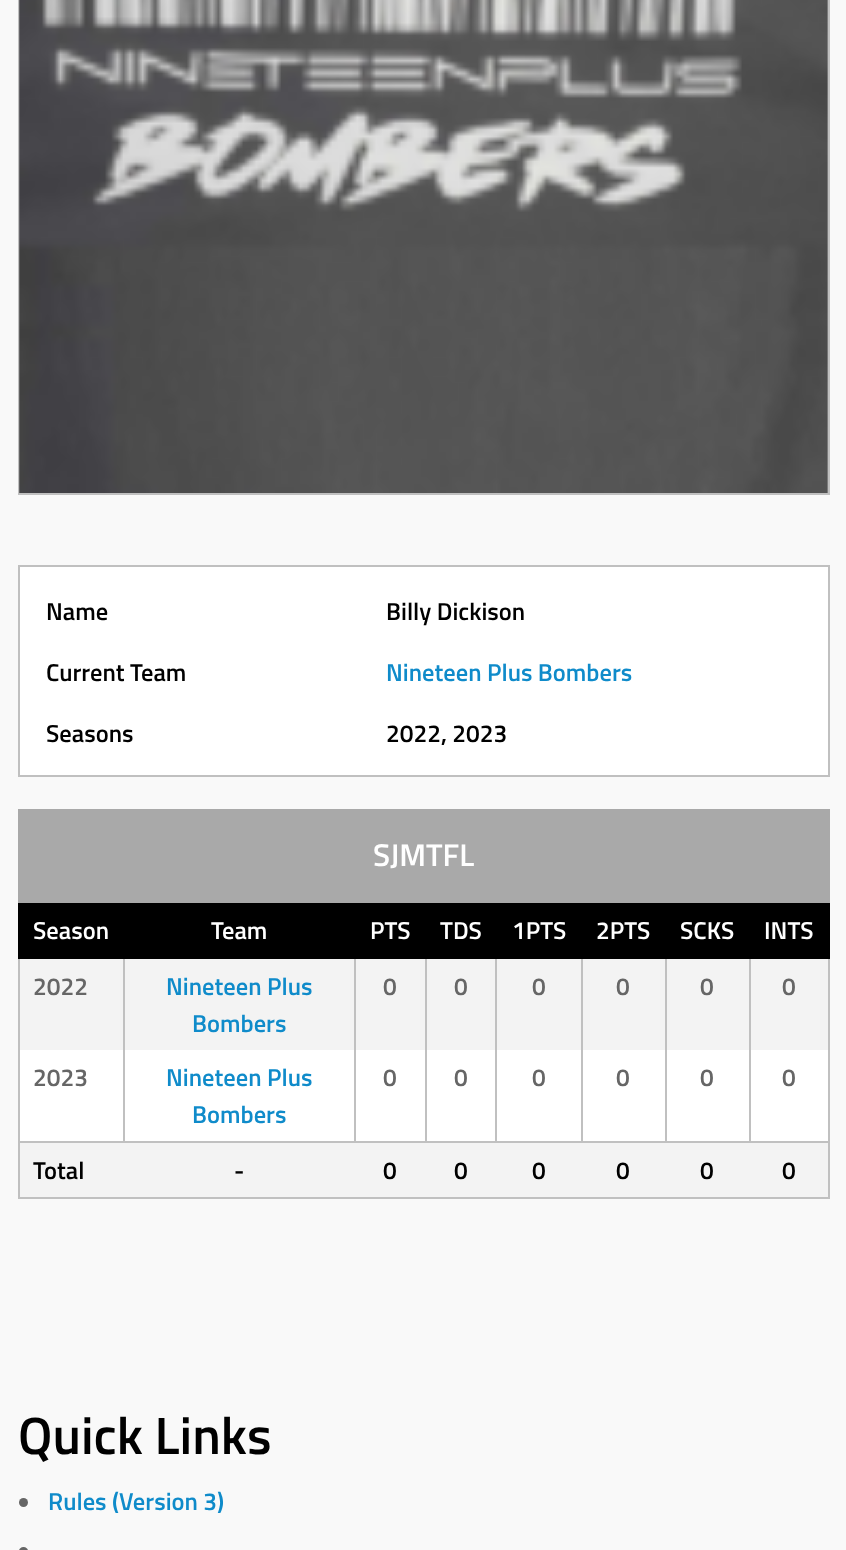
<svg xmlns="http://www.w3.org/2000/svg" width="846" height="1550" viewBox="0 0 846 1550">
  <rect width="100%" height="100%" fill="#f9f9f9"/>
  <path d="M19 -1h810v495H19z" fill="none" stroke="#c0c0c0" stroke-width="2"/>
  <image x="19" y="0" width="809" height="493" href="img/1.png"/>
  <path d="M19 566h810v210H19z" fill="#fff" stroke="#c0c0c0" stroke-width="2"/>
  <path d="M18 957h812v2H18z" fill="#000"/>
  <path d="M18 957h2v93H18z" fill="#c0c0c0"/>
  <path d="M18 901h2v58H18z" fill="#000"/>
  <path d="M20 903h808v54H20z" fill="#000"/>
  <path d="M20 1050h808v91H20z" fill="#fff"/>
  <path d="M20 959h808v91H20z" fill="#f3f3f3"/>
  <path d="M828 1050h2v149H828z" fill="#c0c0c0"/>
  <path d="M18 1197h812v2H18z" fill="#c0c0c0"/>
  <path d="M18 1050h2v149H18z" fill="#c0c0c0"/>
  <path d="M18 1141h812v2H18z" fill="#c0c0c0"/>
  <path d="M123 957h2v186H123z" fill="#c0c0c0"/>
  <path d="M123 901h2v58H123z" fill="#000"/>
  <path d="M354 957h2v186H354z" fill="#c0c0c0"/>
  <path d="M354 901h2v58H354z" fill="#000"/>
  <path d="M425 957h2v186H425z" fill="#c0c0c0"/>
  <path d="M425 901h2v58H425z" fill="#000"/>
  <path d="M495 957h2v186H495z" fill="#c0c0c0"/>
  <path d="M495 901h2v58H495z" fill="#000"/>
  <path d="M581 957h2v186H581z" fill="#c0c0c0"/>
  <path d="M581 901h2v58H581z" fill="#000"/>
  <path d="M665 957h2v186H665z" fill="#c0c0c0"/>
  <path d="M665 901h2v58H665z" fill="#000"/>
  <path d="M828 957h2v93H828z" fill="#c0c0c0"/>
  <path d="M828 901h2v58H828z" fill="#000"/>
  <path d="M749 957h2v186H749z" fill="#c0c0c0"/>
  <path d="M749 901h2v58H749z" fill="#000"/>
  <path d="M18 809h812v94H18z" fill="#a9a9a9"/>
  <path d="M20 1143h808v54H20z" fill="#f3f3f3"/>
  <circle cx="23.5" cy="1502.5" r="4.5" fill="#666"/>
  <rect x="19" y="1547" width="9" height="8" rx="4.5" fill="#666"/>
  <g font-family="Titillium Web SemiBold" font-size="24.5" font-weight="600" fill="#000">
    <text x="46" y="620">Name</text>
    <text x="386" y="620">Billy Dickison</text>
    <text x="46" y="681">Current Team</text>
  </g>
  <text x="386" y="681" font-family="Titillium Web SemiBold" font-size="24.5" font-weight="600" fill="#0f8bca">Nineteen Plus Bombers</text>
  <g font-family="Titillium Web SemiBold" font-size="24.5" font-weight="600" fill="#000">
    <text x="46" y="742">Seasons</text>
    <text x="386" y="742">2022, 2023</text>
  </g>
  <text x="373" y="866" font-family="Titillium Web SemiBold" font-size="31.5" font-weight="600" fill="#fff">SJMTFL</text>
  <g font-family="Titillium Web SemiBold" font-size="24.5" font-weight="600" fill="#fff">
    <text x="33" y="939">Season</text>
    <text x="211" y="939">Team</text>
    <text x="370" y="939">PTS</text>
    <text x="440" y="939">TDS</text>
    <text x="512" y="939">1PTS</text>
    <text x="596" y="939">2PTS</text>
    <text x="680" y="939">SCKS</text>
    <text x="764" y="939">INTS</text>
  </g>
  <text x="33" y="995" font-family="Titillium Web SemiBold" font-size="24.5" font-weight="600" fill="#666">2022</text>
  <g font-family="Titillium Web SemiBold" font-size="24.5" font-weight="600" fill="#0f8bca">
    <text x="166" y="995">Nineteen Plus</text>
    <text x="192" y="1032">Bombers</text>
  </g>
  <g font-family="Titillium Web SemiBold" font-size="24.5" font-weight="600" fill="#666">
    <text x="383" y="995">0</text>
    <text x="454" y="995">0</text>
    <text x="532" y="995">0</text>
    <text x="616" y="995">0</text>
    <text x="700" y="995">0</text>
    <text x="782" y="995">0</text>
    <text x="33" y="1086">2023</text>
  </g>
  <g font-family="Titillium Web SemiBold" font-size="24.5" font-weight="600" fill="#0f8bca">
    <text x="166" y="1086">Nineteen Plus</text>
    <text x="192" y="1123">Bombers</text>
  </g>
  <g font-family="Titillium Web SemiBold" font-size="24.5" font-weight="600" fill="#666">
    <text x="383" y="1086">0</text>
    <text x="454" y="1086">0</text>
    <text x="532" y="1086">0</text>
    <text x="616" y="1086">0</text>
    <text x="700" y="1086">0</text>
    <text x="782" y="1086">0</text>
  </g>
  <g font-family="Titillium Web SemiBold" font-size="24.5" font-weight="600" fill="#000">
    <text x="33" y="1179">Total</text>
    <text x="234" y="1179">-</text>
    <text x="383" y="1179">0</text>
    <text x="454" y="1179">0</text>
    <text x="532" y="1179">0</text>
    <text x="616" y="1179">0</text>
    <text x="700" y="1179">0</text>
    <text x="782" y="1179">0</text>
  </g>
  <text x="18" y="1454" font-family="Titillium Web SemiBold" font-size="52.5" font-weight="600" fill="#000">Quick Links</text>
  <text x="48" y="1510" font-family="Titillium Web SemiBold" font-size="24.5" font-weight="600" fill="#0f8bca">Rules (Version 3)</text>
</svg>
